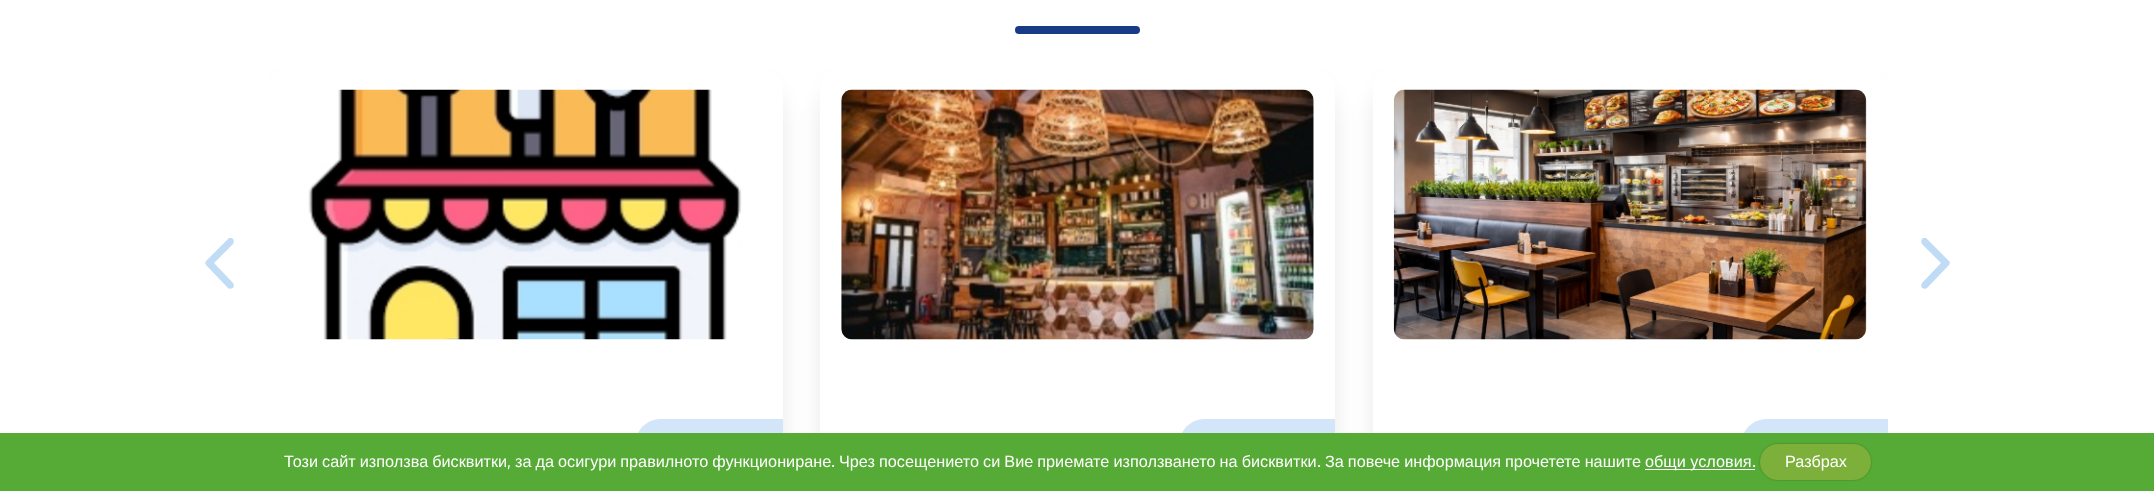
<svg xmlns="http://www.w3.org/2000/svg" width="2154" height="491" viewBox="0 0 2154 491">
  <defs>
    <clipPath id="clip1"><path d="M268 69h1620v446H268z"/></clipPath>
    <clipPath id="clip2"><path d="M1921 238h29v51H1921z"/></clipPath>
    <clipPath id="clip3"><path d="M205 238h29v51H205z"/></clipPath>
  </defs>
  <rect width="100%" height="100%" fill="#fff"/>
  <rect x="1015" y="26" width="125" height="8" rx="4" fill="#183a87"/>
  <g clip-path="url(#clip1)">
    <rect x="268" y="74" width="515" height="410" rx="50" fill="#00000017" filter="blur(11px)"/>
  </g>
  <path d="M287 69H764C774.5 69 783 77.5 783 88V429C783 456.5 760.5 479 733 479H274C270.5 479 268 476.5 268 473V88C268 77.5 276.5 69 287 69Z" fill="#fff"/>
  <image x="308" y="89" width="434" height="251" href="img/1.png"/>
  <path d="M661 419H783V453C783 467.5 771.5 479 757 479H635V445C635 430.5 646.5 419 661 419Z" fill="#d2e5f9"/>
  <g clip-path="url(#clip1)">
    <rect x="820" y="74" width="515" height="410" rx="50" fill="#00000017" filter="blur(11px)"/>
  </g>
  <path d="M839 69H1316C1326.5 69 1335 77.5 1335 88V429C1335 456.5 1312.5 479 1285 479H826C822.5 479 820 476.5 820 473V88C820 77.5 828.5 69 839 69Z" fill="#fff"/>
  <image x="841" y="89" width="473" height="251" href="img/2.png"/>
  <path d="M1205 419H1335V453C1335 467.5 1323.5 479 1309 479H1179V445C1179 430.5 1190.5 419 1205 419Z" fill="#d2e5f9"/>
  <g clip-path="url(#clip2)">
    <path d="M1949 261C1950 262 1950 264 1949 265L1927 288C1926 289 1924 289 1922 288C1921 286 1921 284 1922 283L1941 263L1922 244C1921 242 1921 240 1922 239C1924 237 1926 237 1927 239Z" fill="#c0dbf5" fill-rule="evenodd"/>
  </g>
  <g clip-path="url(#clip1)">
    <rect x="1373" y="74" width="515" height="410" rx="50" fill="#00000017" filter="blur(11px)"/>
  </g>
  <path d="M1392 69H1869C1879.5 69 1888 77.5 1888 88V429C1888 456.5 1865.5 479 1838 479H1379C1375.5 479 1373 476.5 1373 473V88C1373 77.5 1381.5 69 1392 69Z" fill="#fff"/>
  <image x="1393" y="89" width="474" height="251" href="img/3.png"/>
  <path d="M1767 419H1888V453C1888 467.5 1876.5 479 1862 479H1741V445C1741 430.5 1752.5 419 1767 419Z" fill="#d2e5f9"/>
  <g clip-path="url(#clip3)">
    <path d="M206 265C205 264 205 262 206 261L228 239C229 237 231 237 233 239C234 240 234 242 233 244L214 263L233 283C234 284 234 286 233 288C231 289 229 289 228 288Z" fill="#c1dcf5" fill-rule="evenodd"/>
  </g>
  <path d="M0 433h2154v58H0z" fill="#56ab36"/>
  <path d="M1645 469h110v1H1645z" fill="#fff"/>
  <rect x="1760" y="444" width="111" height="36" rx="18" fill="#00000040" filter="blur(1px)"/>
  <rect x="1760" y="444" width="111" height="36" rx="18" fill="#7daf3b"/>
  <text x="284" y="467" word-spacing="-0.5" font-family="Liberation Sans" font-size="16.25" fill="#fff">Този сайт използва бисквитки</text>
  <text x="507" y="467" font-family="Oxygen" font-size="16.25" fill="#fff">,</text>
  <text x="515" y="467" word-spacing="-0.5" font-family="Liberation Sans" font-size="16.25" fill="#fff">за да осигури правилното функциониране</text>
  <text x="831" y="467" font-family="Oxygen" font-size="16.25" fill="#fff">.</text>
  <text x="839" y="467" word-spacing="-0.5" font-family="Liberation Sans" font-size="16.25" fill="#fff">Чрез посещението си Вие приемате използването на бисквитки</text>
  <text x="1317" y="467" font-family="Oxygen" font-size="16.25" fill="#fff">.</text>
  <g font-family="Liberation Sans" font-size="16.25" fill="#fff">
    <text x="1325" y="467" word-spacing="-0.5">За повече информация прочетете нашите</text>
    <text x="1645" y="467">общи условия</text>
  </g>
  <text x="1752" y="467" font-family="Oxygen" font-size="16.25" fill="#fff">.</text>
  <text x="1785" y="467" font-family="Liberation Sans" font-size="16.25" fill="#fff">Разбрах</text>
</svg>
